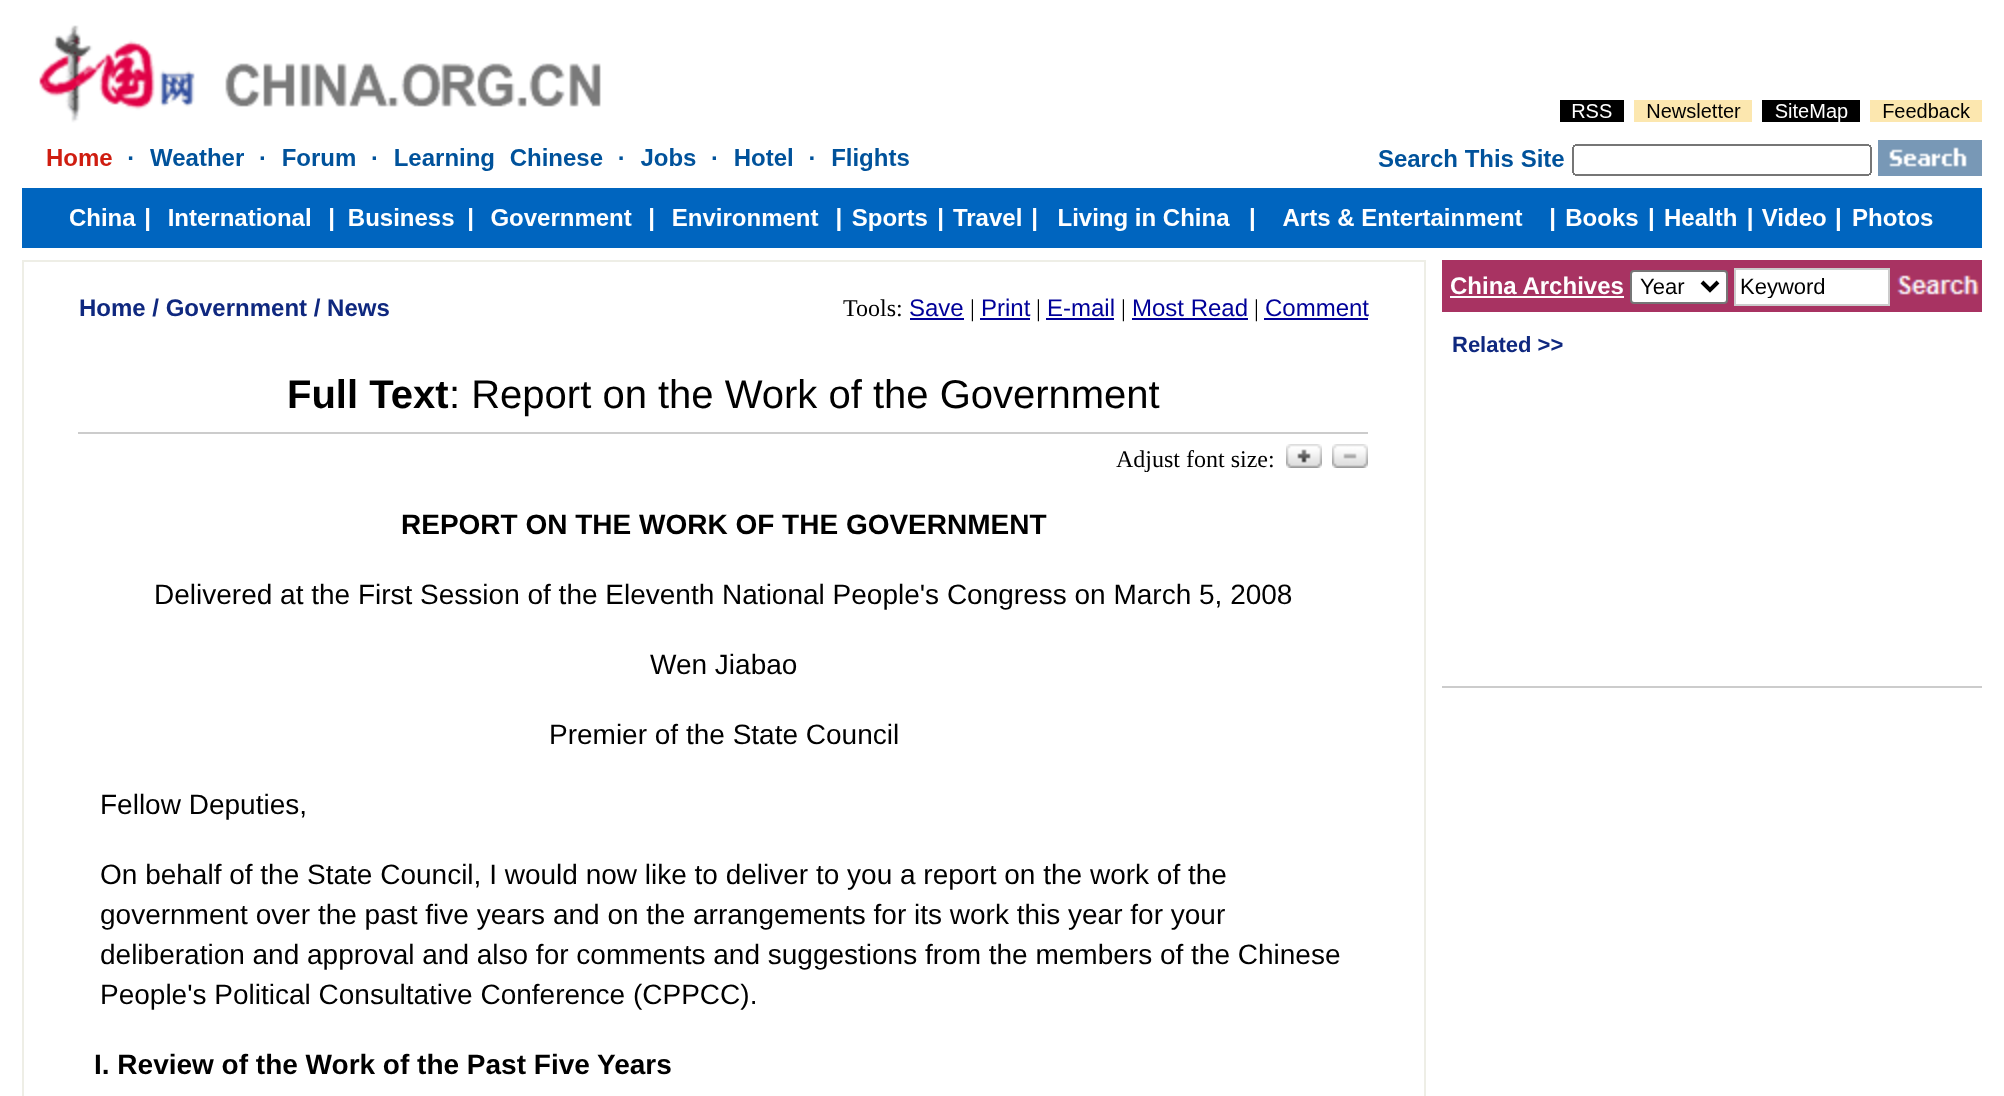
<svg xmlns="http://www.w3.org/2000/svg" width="2004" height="1096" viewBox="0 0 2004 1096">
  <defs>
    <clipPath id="clip1"><path d="M1740 274h144v24H1740z"/></clipPath>
  </defs>
  <rect width="100%" height="100%" fill="#fff"/>
  <image x="22" y="25" width="1960" height="223" href="img/1.png"/>
  <path d="M23 261h1402v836H23z" fill="none" stroke="#eeeee6" stroke-width="2"/>
  <path d="M910 318h54v2H910z" fill="#009"/>
  <path d="M980 318h50v2H980z" fill="#009"/>
  <path d="M1046 318h68v2H1046z" fill="#009"/>
  <path d="M1132 318h116v2H1132z" fill="#009"/>
  <path d="M1264 318h104v2H1264z" fill="#009"/>
  <path d="M78 432h1290v2H78z" fill="#ccc"/>
  <image x="1286" y="444" width="36" height="24" href="img/2.png"/>
  <image x="1332" y="444" width="36" height="24" href="img/3.png"/>
  <path d="M1442 260h540v52H1442z" fill="#a83362"/>
  <path d="M1450 296h174v2H1450z" fill="#fff"/>
  <rect x="1631" y="271" width="96" height="32" rx="3" fill="#fff" stroke="#767676" stroke-width="2"/>
  <path d="M1702 282L1710 290L1718 282" fill="none" stroke="#000" stroke-width="4"/>
  <path d="M1735 269h154v36H1735z" fill="#fff" stroke="#ccc" stroke-width="2"/>
  <image x="1896" y="268" width="84" height="36" href="img/4.png"/>
  <path d="M1442 686h540v2H1442z" fill="#ccc"/>
  <text x="79" y="316" font-family="Liberation Sans" font-size="24" font-weight="bold" fill="#0f287f">Home / Government / News</text>
  <text x="843" y="316" font-family="Liberation Serif" font-size="24" fill="#000">Tools:</text>
  <text x="909" y="316" font-family="Liberation Sans" font-size="24" fill="#009">Save</text>
  <text x="970" y="316" font-family="Liberation Serif" font-size="24" fill="#000">|</text>
  <text x="981" y="316" font-family="Liberation Sans" font-size="24" fill="#009">Print</text>
  <text x="1036" y="316" font-family="Liberation Serif" font-size="24" fill="#000">|</text>
  <text x="1047" y="316" font-family="Liberation Sans" font-size="24" fill="#009">E-mail</text>
  <text x="1121" y="316" font-family="Liberation Serif" font-size="24" fill="#000">|</text>
  <text x="1132" y="316" font-family="Liberation Sans" font-size="24" fill="#009">Most Read</text>
  <text x="1254" y="316" font-family="Liberation Serif" font-size="24" fill="#000">|</text>
  <text x="1265" y="316" font-family="Liberation Sans" font-size="24" fill="#009">Comment</text>
  <text x="287" y="408" font-family="Liberation Sans" font-size="40" font-weight="bold" fill="#000">Full Text</text>
  <text x="449" y="408" font-family="Liberation Sans" font-size="40" fill="#000">: Report on the Work of the Government</text>
  <text x="1116" y="467" font-family="Liberation Serif" font-size="24" fill="#000">Adjust font size:</text>
  <text x="401" y="534" font-family="Liberation Sans" font-size="28" font-weight="bold" fill="#000">REPORT ON THE WORK OF THE GOVERNMENT</text>
  <g font-family="Liberation Sans" font-size="28" fill="#000">
    <text x="154" y="604">Delivered at the First Session of the Eleventh National People's Congress on March 5, 2008</text>
    <text x="650" y="674">Wen Jiabao</text>
    <text x="549" y="744">Premier of the State Council</text>
    <text x="100" y="814">Fellow Deputies,</text>
    <text x="100" y="884">On behalf of the State Council, I would now like to deliver to you a report on the work of the</text>
    <text x="100" y="924">government over the past five years and on the arrangements for its work this year for your</text>
    <text x="100" y="964">deliberation and approval and also for comments and suggestions from the members of the Chinese</text>
    <text x="100" y="1004">People's Political Consultative Conference (CPPCC).</text>
  </g>
  <text x="94" y="1074" font-family="Liberation Sans" font-size="28" font-weight="bold" fill="#000">I. Review of the Work of the Past Five Years</text>
  <text x="1450" y="294" font-family="Liberation Sans" font-size="24" font-weight="bold" fill="#fff">China Archives</text>
  <text x="1640" y="294" font-family="Liberation Sans" font-size="22" fill="#000">Year</text>
  <g clip-path="url(#clip1)">
    <text x="1740" y="294" font-family="Liberation Sans" font-size="22" fill="#000">Keyword</text>
  </g>
  <text x="1452" y="352" font-family="Liberation Sans" font-size="22" font-weight="bold" fill="#0f287f">Related &gt;&gt;</text>
</svg>
